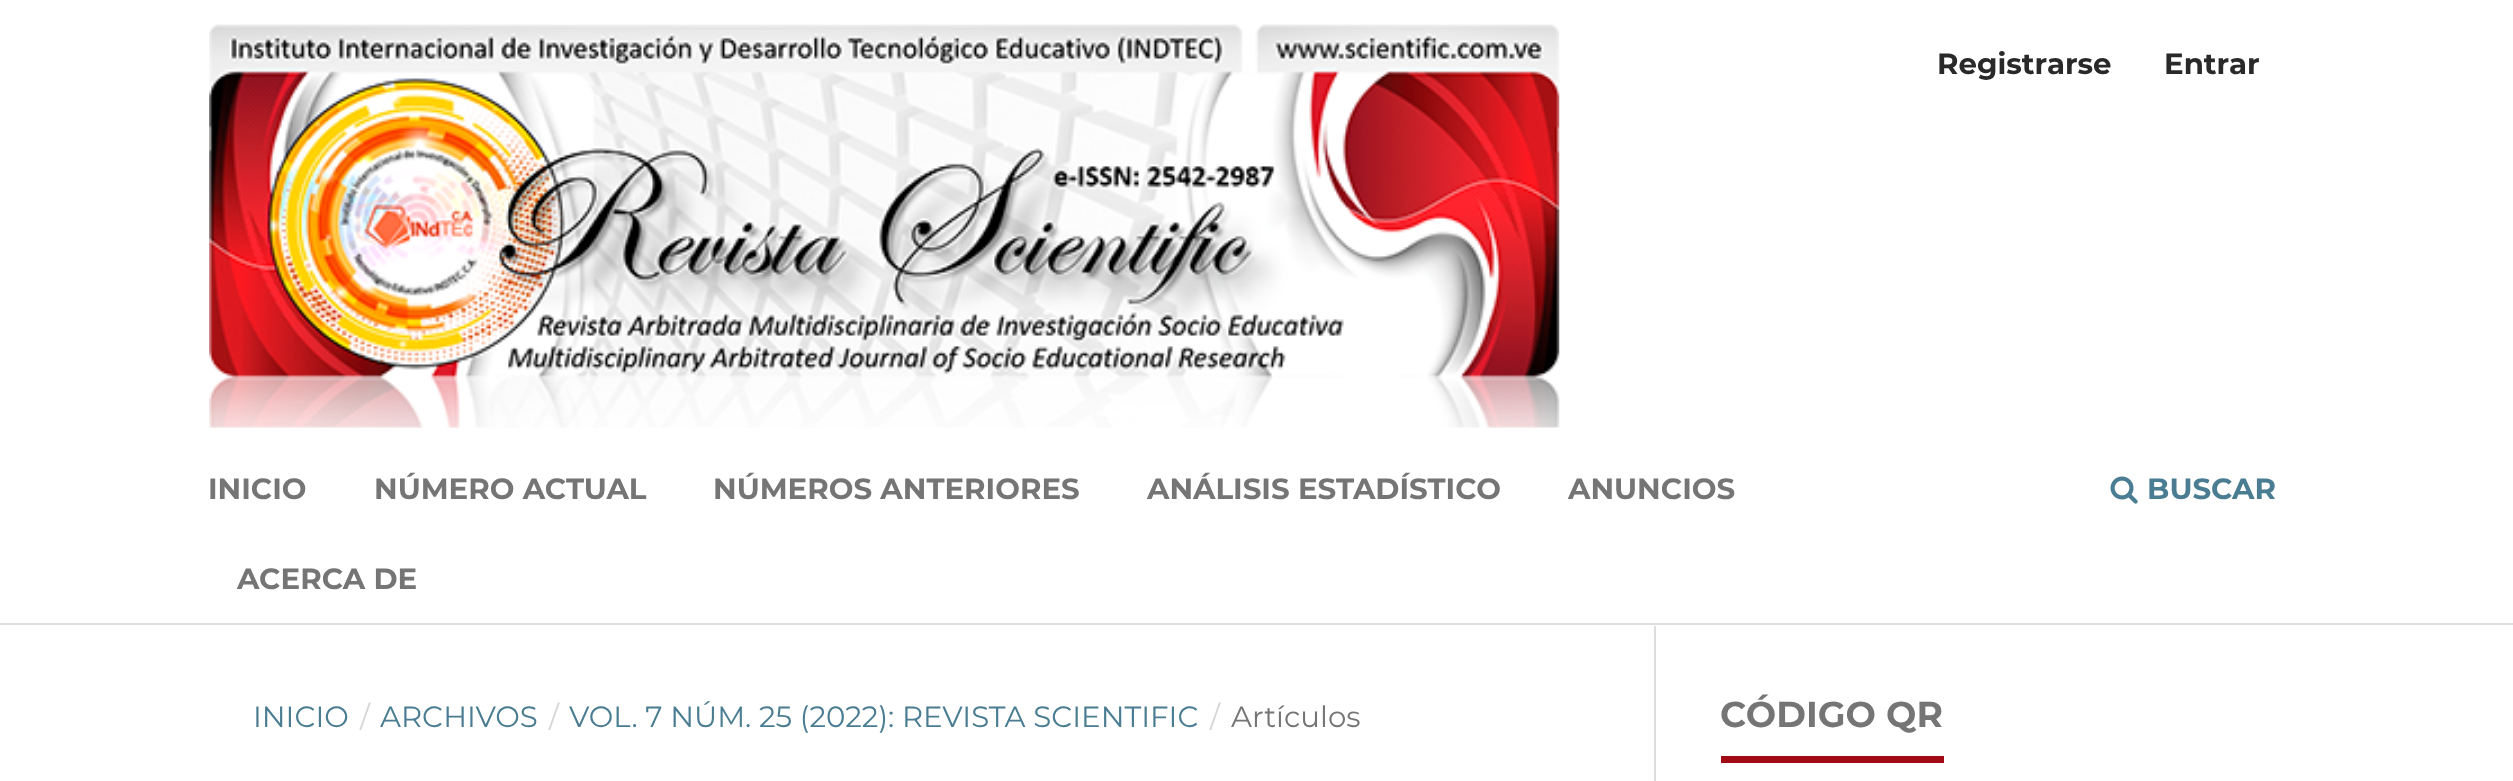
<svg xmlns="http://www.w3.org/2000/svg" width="2513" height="781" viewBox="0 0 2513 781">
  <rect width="100%" height="100%" fill="#fff"/>
  <path d="M0 623h2513v2H0z" fill="#ddd"/>
  <image x="209" y="24" width="1351" height="404" href="img/1.png"/>
  <image x="2110" y="476" width="28" height="28" href="img/2.png"/>
  <path d="M1654 626h2v155H1654z" fill="#ddd"/>
  <path d="M1721 756h223v7H1721z" fill="#a10914"/>
  <g font-family="Montserrat" font-size="29.25" font-weight="bold" fill="#292929">
    <text x="1937" y="74">Registrarse</text>
    <text x="2164" y="74">Entrar</text>
  </g>
  <g font-family="Montserrat" font-size="29.25" font-weight="bold" fill="#757575">
    <text x="208" y="499">INICIO</text>
    <text x="374" y="499">NÚMERO ACTUAL</text>
    <text x="713" y="499">NÚMEROS ANTERIORES</text>
    <text x="1147" y="499">ANÁLISIS ESTADÍSTICO</text>
    <text x="1568" y="499">ANUNCIOS</text>
    <text x="237" y="589">ACERCA DE</text>
  </g>
  <text x="2147" y="499" font-family="Montserrat" font-size="29.25" font-weight="bold" fill="#4b7d92">BUSCAR</text>
  <text x="253" y="727" font-family="Montserrat" font-size="29.25" fill="#4b7d92">INICIO</text>
  <text x="360" y="727" font-family="Montserrat" font-size="29.25" fill="#d6d6d6">/</text>
  <text x="380" y="727" font-family="Montserrat" font-size="29.25" fill="#4b7d92">ARCHIVOS</text>
  <text x="549" y="727" font-family="Montserrat" font-size="29.25" fill="#d6d6d6">/</text>
  <text x="569" y="727" font-family="Montserrat" font-size="29.25" fill="#4b7d92">VOL. 7 NÚM. 25 (2022): REVISTA SCIENTIFIC</text>
  <text x="1210" y="727" font-family="Montserrat" font-size="29.25" fill="#d6d6d6">/</text>
  <text x="1231" y="727" font-family="Montserrat" font-size="29.25" fill="#757575">Artículos</text>
  <text x="1720" y="727" font-family="Montserrat" font-size="36" font-weight="bold" fill="#757575">CÓDIGO QR</text>
</svg>
